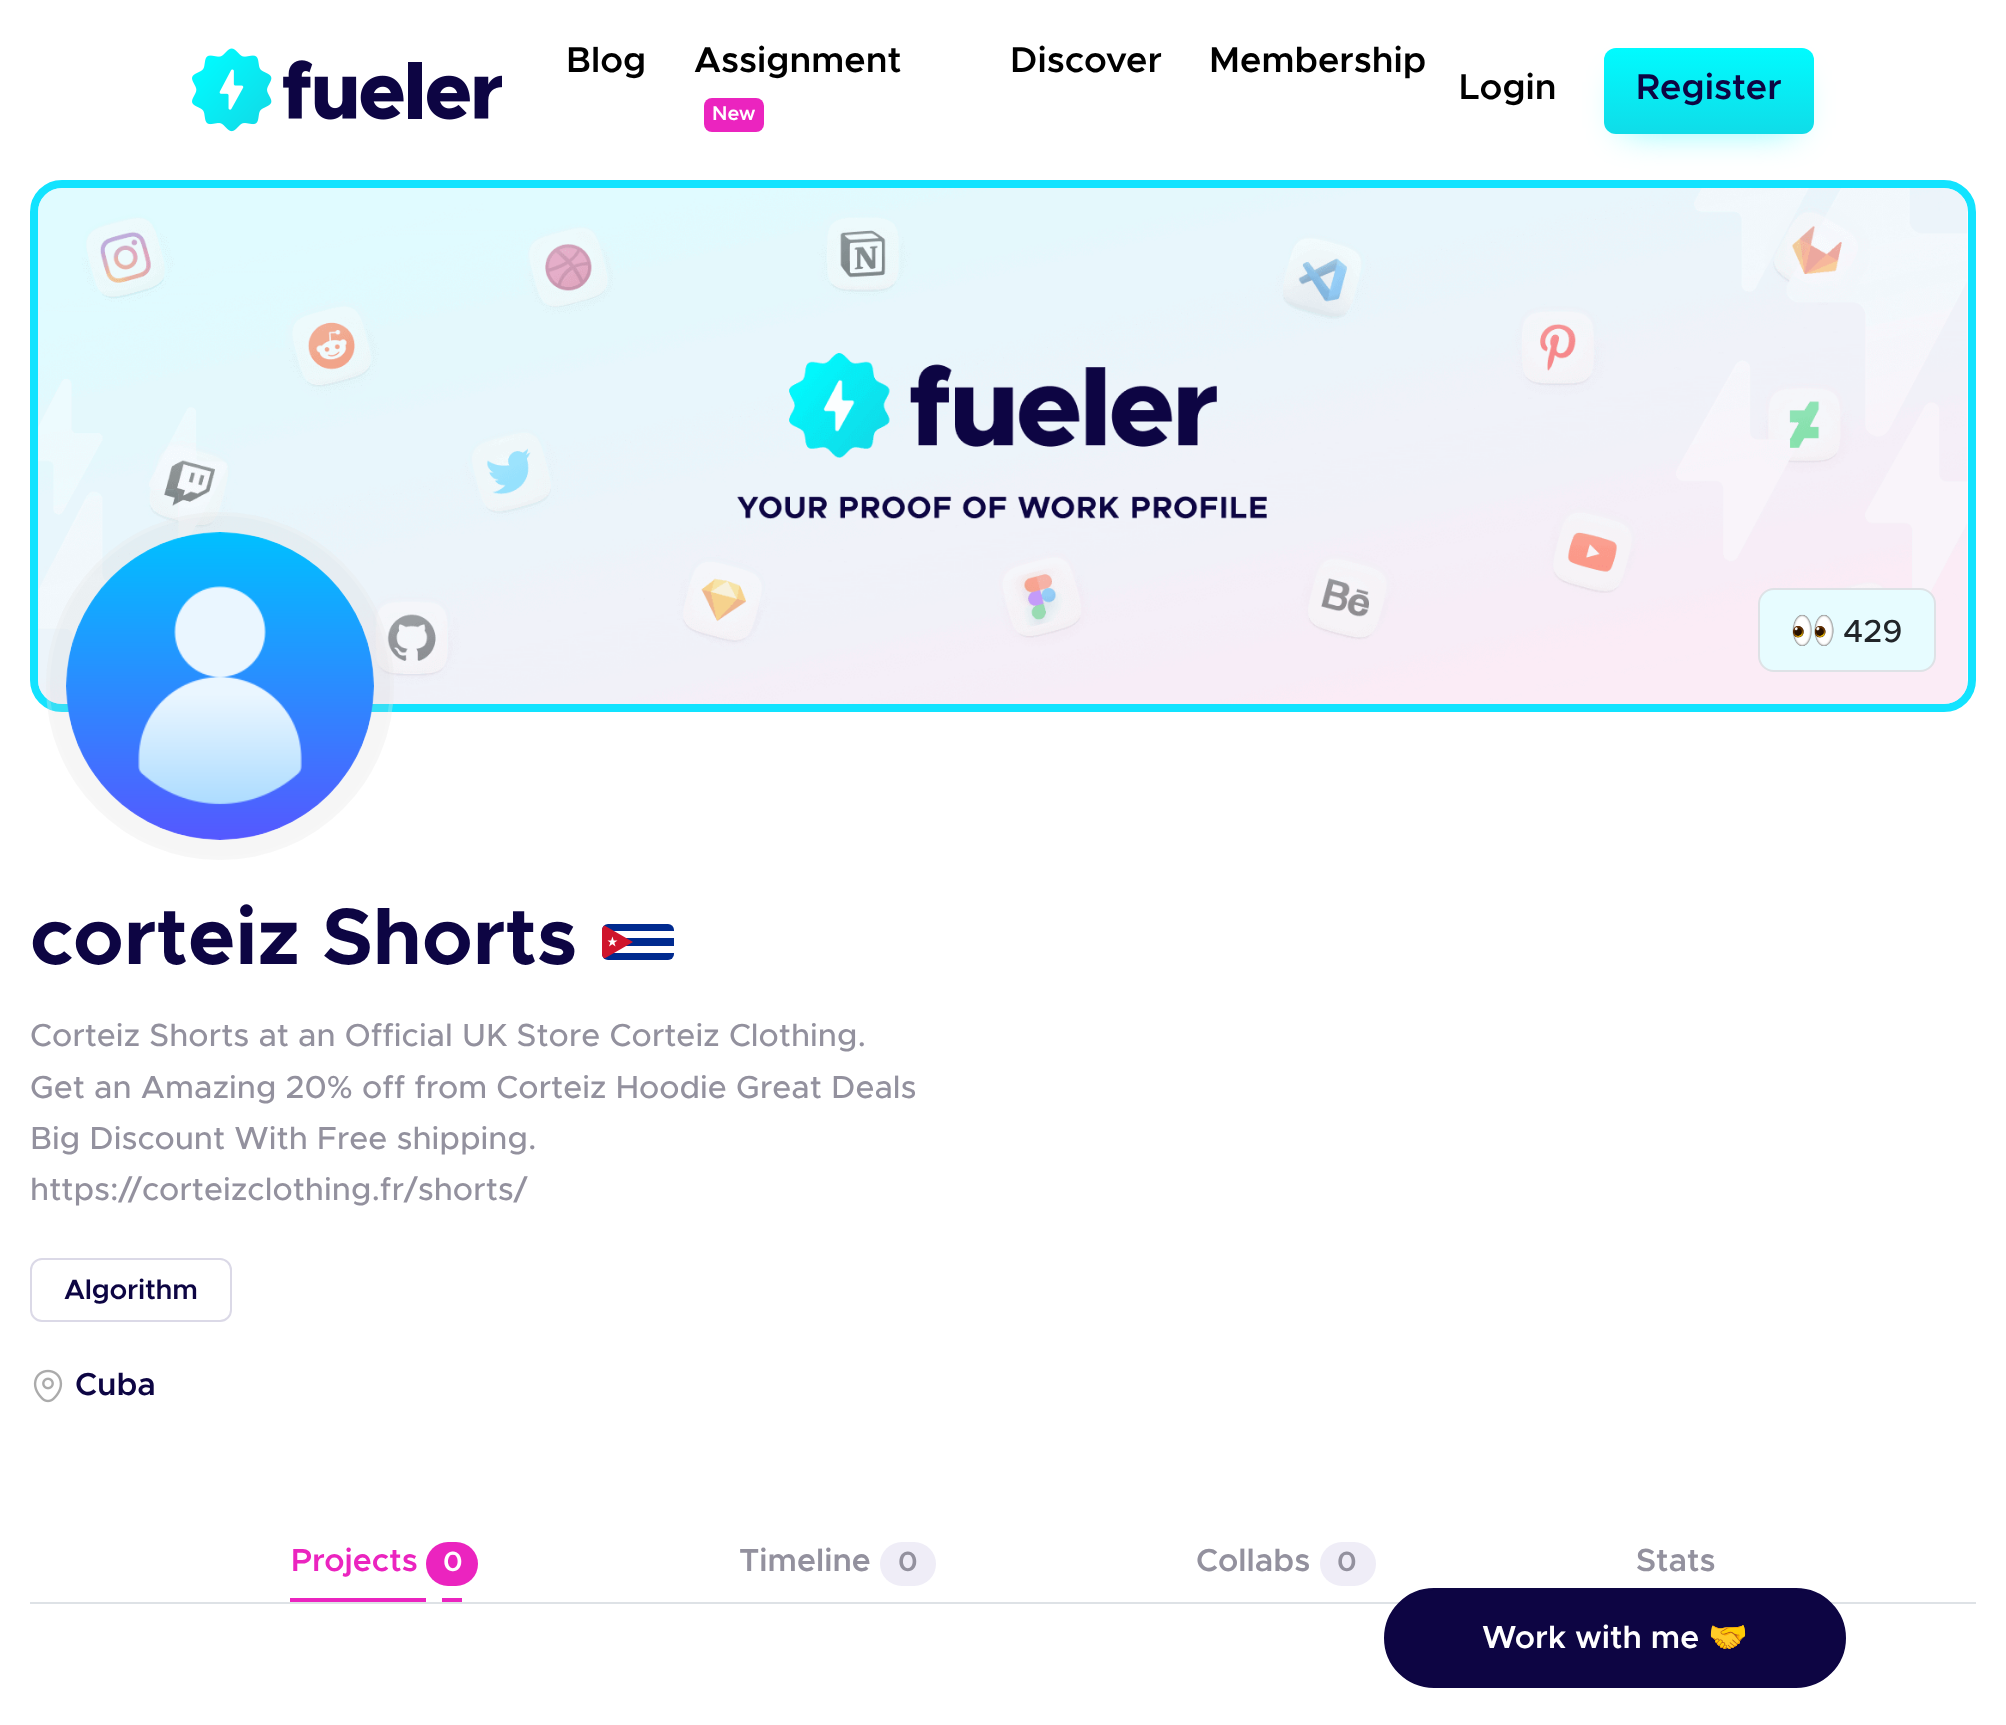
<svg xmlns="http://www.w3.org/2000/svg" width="2006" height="1725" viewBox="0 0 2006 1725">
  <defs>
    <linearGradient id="g1" gradientUnits="userSpaceOnUse" x1="1709" y1="48" x2="1709" y2="134"><stop offset="0" stop-color="#00fbff"/><stop offset="1" stop-color="#10dce8"/><stop offset="1" stop-color="#09c9e3"/></linearGradient>
  </defs>
  <rect width="100%" height="100%" fill="#fff"/>
  <image x="192" y="48" width="310" height="84" href="img/1.png"/>
  <rect x="704" y="98" width="60" height="34" rx="8" fill="#eb24bf"/>
  <rect x="34" y="184" width="1938" height="524" rx="28" fill="none" stroke="#12e3ff" stroke-width="8"/>
  <path d="M1624 82h170v46H1624z" fill="#00fbff99" filter="blur(18px)"/>
  <rect x="1604" y="48" width="210" height="86" rx="12" fill="url(#g1)"/>
  <image x="38" y="188" width="1930" height="516" href="img/3.png"/>
  <circle cx="220" cy="686" r="174" fill="#d1d1d130"/>
  <circle cx="220" cy="686" r="172" fill="none" stroke="#ffffff2e" stroke-width="4"/>
  <image x="66" y="532" width="308" height="308" href="img/2.png"/>
  <rect x="1759" y="589" width="176" height="82" rx="15" fill="#e7fcff" stroke="#dee2e6" stroke-width="2"/>
  <image x="1792" y="614" width="42" height="32" href="img/4.png"/>
  <rect x="602" y="924" width="72" height="36" rx="6" fill="#002a8f"/>
  <path d="M609 931H674V938H624V946H674V953H609Z" fill="#fff"/>
  <path d="M633 942L604.5 925.5C603 926.5 602 928 602 930V954C602 956 603 957.5 604.5 958.5Z" fill="#cf142b"/>
  <path d="M612.5 936.5L609 946.5L617.5 940.5H607.5L615.5 946.5Z" fill="#fff"/>
  <rect x="31" y="1259" width="200" height="62" rx="11" fill="none" stroke="#dbd9e7" stroke-width="2"/>
  <image x="33" y="1369" width="30" height="34" href="img/5.png"/>
  <path d="M30 1602h1946v2H30z" fill="#dee2e6"/>
  <path d="M290 1598h136v4H290z" fill="#eb24bf"/>
  <path d="M442 1598h20v4H442z" fill="#eb24bf"/>
  <rect x="426" y="1542" width="52" height="44" rx="22" fill="#eb24bf"/>
  <rect x="880" y="1542" width="56" height="44" rx="22" fill="#efedf7"/>
  <rect x="1320" y="1542" width="56" height="44" rx="22" fill="#efedf7"/>
  <rect x="1385" y="1589" width="460" height="98" rx="49" fill="#0d0543" stroke="#0d0543" stroke-width="2"/>
  <g font-family="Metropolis" font-size="36" font-weight="600" fill="#000">
    <text x="566" y="72">Blog</text>
    <text x="694" y="72">Assignment</text>
  </g>
  <text x="712" y="120" font-family="Metropolis" font-size="20" font-weight="600" fill="#fff">New</text>
  <g font-family="Metropolis" font-size="36" font-weight="600" fill="#000">
    <text x="1010" y="72">Discover</text>
    <text x="1209" y="72">Membership</text>
    <text x="1459" y="99">Login</text>
  </g>
  <text x="1636" y="99" font-family="Metropolis" font-size="36" font-weight="600" fill="#0d0543">Register</text>
  <text x="1843" y="642" font-family="Metropolis" font-size="32" font-weight="500" fill="#212529">429</text>
  <text x="30" y="964" font-family="Metropolis" font-size="80" font-weight="bold" fill="#0d0543">corteiz Shorts</text>
  <g font-family="Metropolis" font-size="32" font-weight="500" fill="#93919e">
    <text x="30" y="1046">Corteiz Shorts at an Official UK Store Corteiz Clothing.</text>
    <text x="30" y="1098">Get an Amazing 20% off from Corteiz Hoodie Great Deals</text>
    <text x="30" y="1149">Big Discount With Free shipping.</text>
    <text x="30" y="1200">https://corteizclothing.fr/shorts/</text>
  </g>
  <text x="64" y="1299" font-family="Metropolis" font-size="28" font-weight="600" letter-spacing="-0.25" fill="#0d0543">Algorithm</text>
  <text x="75" y="1395" font-family="Metropolis" font-size="32" font-weight="600" fill="#0d0543">Cuba</text>
  <text x="291" y="1571" font-family="Metropolis" font-size="32" font-weight="600" fill="#eb24bf">Projects</text>
  <text x="443" y="1571" font-family="Metropolis" font-size="28" font-weight="600" fill="#fff">0</text>
  <text x="739" y="1571" font-family="Metropolis" font-size="32" font-weight="600" fill="#93919e">Timeline</text>
  <text x="898" y="1571" font-family="Metropolis" font-size="28" font-weight="600" fill="#93919e">0</text>
  <text x="1196" y="1571" font-family="Metropolis" font-size="32" font-weight="600" fill="#93919e">Collabs</text>
  <text x="1337" y="1571" font-family="Metropolis" font-size="28" font-weight="600" fill="#93919e">0</text>
  <text x="1636" y="1571" font-family="Metropolis" font-size="32" font-weight="600" fill="#93919e">Stats</text>
  <text x="1482" y="1648" font-family="Metropolis" font-size="32" font-weight="600" fill="#fff">Work with me</text>
  <text x="1708" y="1648" font-family="Noto Color Emoji" font-size="32" font-weight="bold" fill="#fff">🤝</text>
</svg>
